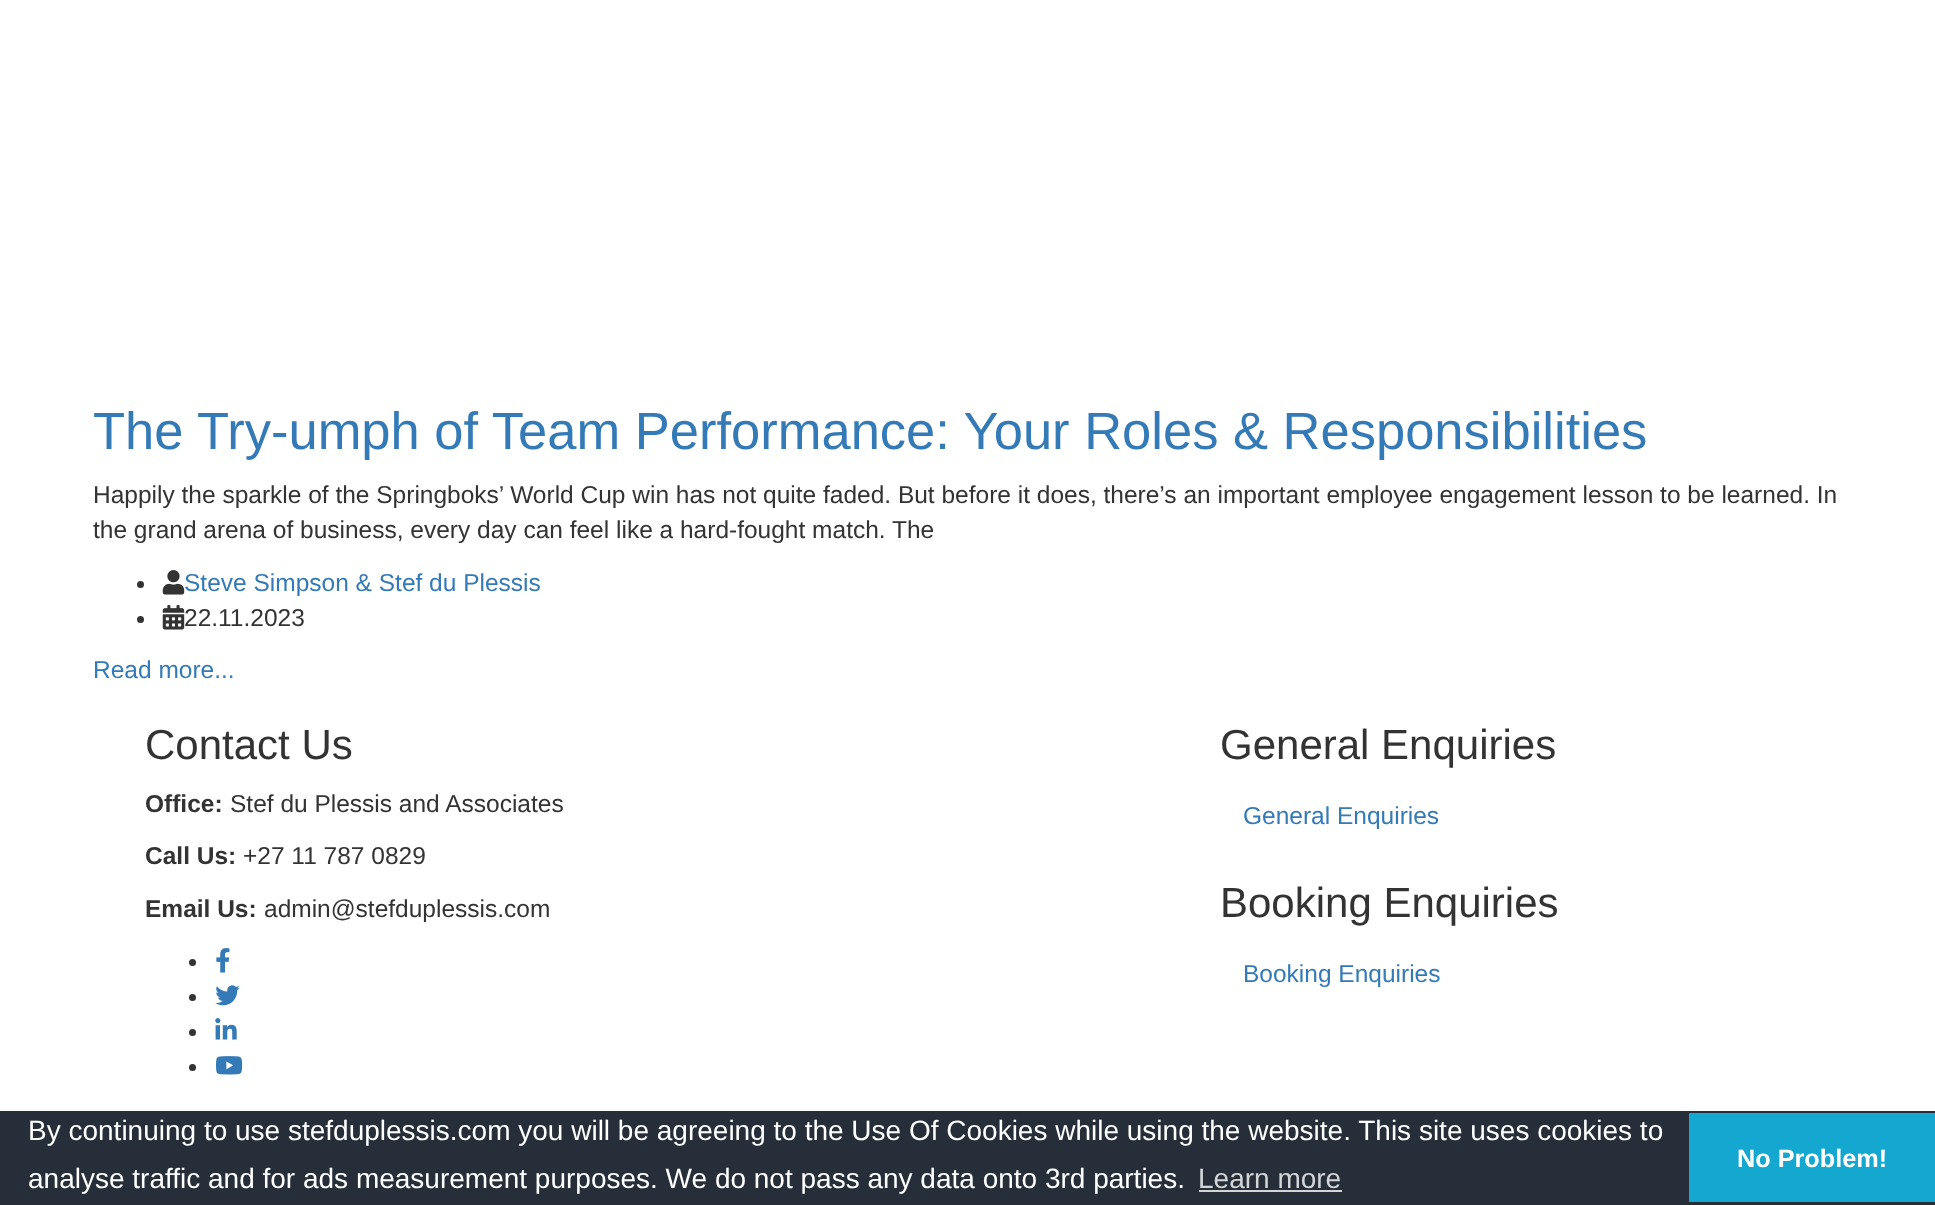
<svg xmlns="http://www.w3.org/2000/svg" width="1935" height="1205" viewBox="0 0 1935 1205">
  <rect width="100%" height="100%" fill="#fff"/>
  <circle cx="140.5" cy="584.5" r="3.5" fill="#333"/>
  <image x="162" y="570" width="23" height="25" href="img/1.png"/>
  <circle cx="140.5" cy="619.5" r="3.5" fill="#333"/>
  <image x="162" y="605" width="23" height="25" href="img/2.png"/>
  <circle cx="192.5" cy="962.5" r="3.5" fill="#333"/>
  <image x="216" y="948" width="14" height="25" href="img/3.png"/>
  <circle cx="192.5" cy="997.5" r="3.5" fill="#333"/>
  <image x="215" y="985" width="25" height="21" href="img/4.png"/>
  <circle cx="192.5" cy="1032.5" r="3.5" fill="#333"/>
  <image x="215" y="1018" width="22" height="22" href="img/5.png"/>
  <circle cx="192.5" cy="1067.5" r="3.5" fill="#333"/>
  <image x="215" y="1056" width="28" height="19" href="img/6.png"/>
  <path d="M0 1111h1935v94H0z" fill="#252e39"/>
  <path d="M1199 1190h143v2H1199z" fill="#d3d5d7"/>
  <path d="M1689 1113h246v89H1689z" fill="#14a7d0"/>
  <text x="93" y="449" font-family="Liberation Sans" font-size="52.5" fill="#337ab7">The Try-umph of Team Performance: Your Roles &amp; Responsibilities</text>
  <g font-family="Liberation Sans" font-size="24.5" fill="#333">
    <text x="93" y="503">Happily the sparkle of the Springboks’ World Cup win has not quite faded. But before it does, there’s an important employee engagement lesson to be learned. In</text>
    <text x="93" y="538">the grand arena of business, every day can feel like a hard-fought match. The</text>
  </g>
  <text x="184" y="591" font-family="Liberation Sans" font-size="24.5" fill="#337ab7">Steve Simpson &amp; Stef du Plessis</text>
  <text x="184" y="626" font-family="Liberation Sans" font-size="24.5" fill="#333">22.11.2023</text>
  <text x="93" y="678" font-family="Liberation Sans" font-size="24.5" fill="#337ab7">Read more...</text>
  <text x="145" y="759" font-family="Liberation Sans" font-size="42" fill="#333">Contact Us</text>
  <text x="145" y="812" font-family="Liberation Sans" font-size="24.5" font-weight="bold" fill="#333">Office:</text>
  <text x="230" y="812" font-family="Liberation Sans" font-size="24.5" fill="#333">Stef du Plessis and Associates</text>
  <text x="145" y="864" font-family="Liberation Sans" font-size="24.5" font-weight="bold" fill="#333">Call Us:</text>
  <text x="243" y="864" font-family="Liberation Sans" font-size="24.5" fill="#333">+27 11 787 0829</text>
  <text x="145" y="917" font-family="Liberation Sans" font-size="24.5" font-weight="bold" fill="#333">Email Us:</text>
  <text x="264" y="917" font-family="Liberation Sans" font-size="24.5" fill="#333">admin@stefduplessis.com</text>
  <text x="1220" y="759" font-family="Liberation Sans" font-size="42" fill="#333">General Enquiries</text>
  <text x="1243" y="824" font-family="Liberation Sans" font-size="24.5" fill="#337ab7">General Enquiries</text>
  <text x="1220" y="917" font-family="Liberation Sans" font-size="42" fill="#333">Booking Enquiries</text>
  <text x="1243" y="982" font-family="Liberation Sans" font-size="24.5" fill="#337ab7">Booking Enquiries</text>
  <g font-family="Liberation Sans" font-size="28" fill="#fff">
    <text x="28" y="1140">By continuing to use stefduplessis.com you will be agreeing to the Use Of Cookies while using the website. This site uses cookies to</text>
    <text x="28" y="1188">analyse traffic and for ads measurement purposes. We do not pass any data onto 3rd parties.</text>
  </g>
  <text x="1198" y="1188" font-family="Liberation Sans" font-size="28" fill="#d3d5d7">Learn more</text>
  <text x="1737" y="1167" font-family="Liberation Sans" font-size="25.25" font-weight="bold" fill="#fff">No Problem!</text>
</svg>
